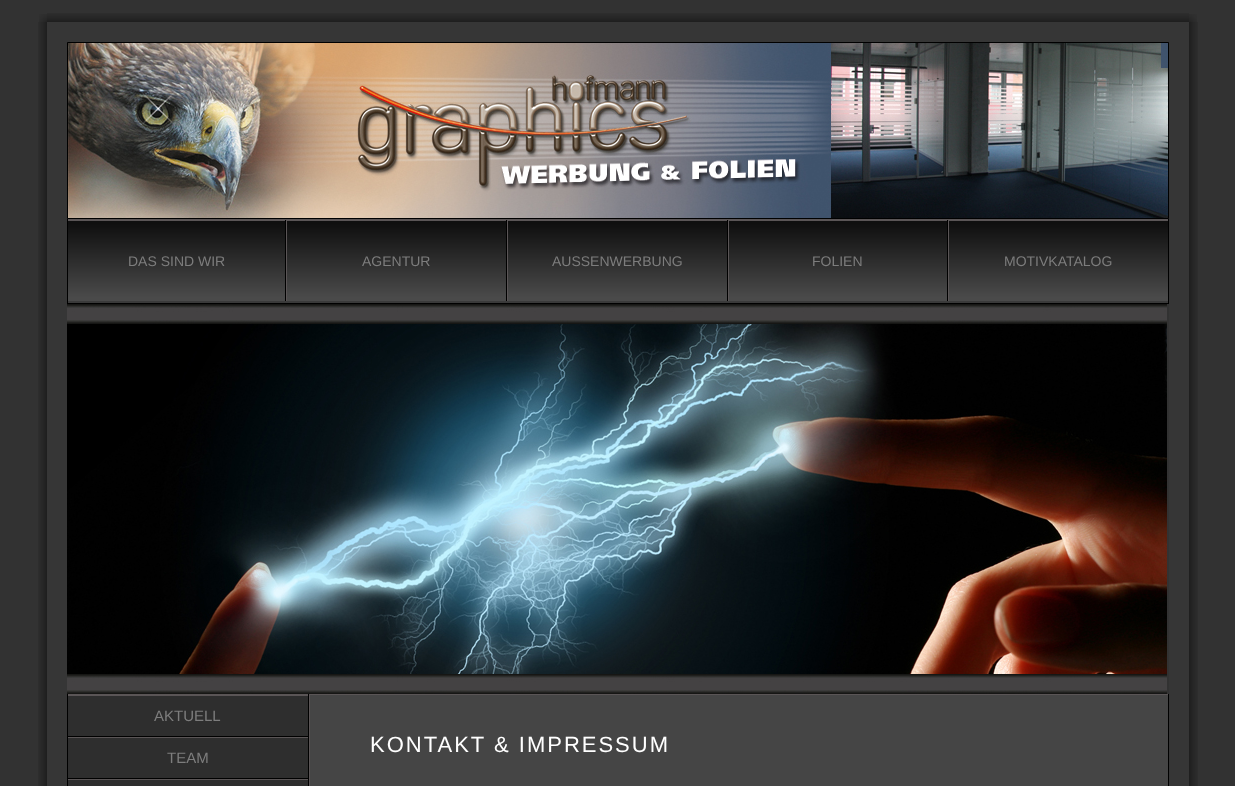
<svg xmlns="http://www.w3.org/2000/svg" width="1235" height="786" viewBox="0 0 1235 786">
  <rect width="100%" height="100%" fill="#323232"/>
  <image x="39" y="14" width="8" height="8" href="img/1.png"/>
  <image x="47" y="13" width="1142" height="9" href="img/2.png"/>
  <image x="1189" y="14" width="8" height="8" href="img/3.png"/>
  <image x="38" y="22" width="9" height="764" href="img/4.png"/>
  <path d="M57 32h1122v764H57z" fill="none" stroke="#363636" stroke-width="20"/>
  <path d="M67.5 42.5h1101v176H67.5z" fill="none" stroke="#000"/>
  <image x="68" y="43" width="1100" height="175" href="img/5.png"/>
  <path d="M68 301h1100v2H68z" fill="#3a3a3a"/>
  <path d="M67 219h1102v1H67z" fill="#5a5556"/>
  <path d="M1168 219h1v85H1168z" fill="#000"/>
  <path d="M67 303h1102v1H67z" fill="#000"/>
  <path d="M67 219h1v85H67z" fill="#000"/>
  <image x="68" y="221" width="217" height="80" href="img/6.png"/>
  <path d="M68 220h217v1H68z" fill="#5a5556"/>
  <path d="M285 220h1v81H285z" fill="#000"/>
  <path d="M286 220h1v81H286z" fill="#5a5556"/>
  <image x="287" y="221" width="219" height="80" href="img/7.png"/>
  <path d="M287 220h219v1H287z" fill="#5a5556"/>
  <path d="M506 220h1v81H506z" fill="#000"/>
  <path d="M507 220h1v81H507z" fill="#5a5556"/>
  <image x="508" y="221" width="219" height="80" href="img/7.png"/>
  <path d="M508 220h219v1H508z" fill="#5a5556"/>
  <path d="M727 220h1v81H727z" fill="#000"/>
  <path d="M728 220h1v81H728z" fill="#5a5556"/>
  <image x="729" y="221" width="218" height="80" href="img/8.png"/>
  <path d="M729 220h218v1H729z" fill="#5a5556"/>
  <path d="M947 220h1v81H947z" fill="#000"/>
  <path d="M948 220h1v81H948z" fill="#5a5556"/>
  <image x="949" y="221" width="219" height="80" href="img/7.png"/>
  <path d="M949 220h219v1H949z" fill="#5a5556"/>
  <image x="67" y="304" width="1100" height="20" href="img/9.png"/>
  <image x="67" y="324" width="1100" height="350" href="img/10.png"/>
  <image x="67" y="674" width="1100" height="20" href="img/9.png"/>
  <path d="M67 694h1102v1H67z" fill="#5a5556"/>
  <path d="M308 694h1v92H308z" fill="#000"/>
  <path d="M67 694h1v92H67z" fill="#000"/>
  <path d="M68 695h240v1H68z" fill="#5a5556"/>
  <path d="M68 696h240v40H68z" fill="#2e2e2e"/>
  <path d="M68 736h240v1H68z" fill="#000"/>
  <path d="M68 737h240v1H68z" fill="#5a5556"/>
  <path d="M68 738h240v40H68z" fill="#2e2e2e"/>
  <path d="M68 778h240v1H68z" fill="#000"/>
  <path d="M68 779h240v1H68z" fill="#5a5556"/>
  <path d="M68 780h240v6H68z" fill="#2e2e2e"/>
  <path d="M310 695h858v91H310z" fill="#454545"/>
  <path d="M1168 694h1v92H1168z" fill="#000"/>
  <path d="M309 694h1v92H309z" fill="#5a5556"/>
  <image x="1189" y="22" width="9" height="764" href="img/11.png"/>
  <g font-family="Liberation Sans" font-size="14" fill="#7d7d7d">
    <text x="128" y="266">DAS SIND WIR</text>
    <text x="362" y="266">AGENTUR</text>
    <text x="552" y="266">AUSSENWERBUNG</text>
    <text x="812" y="266">FOLIEN</text>
    <text x="1004" y="266">MOTIVKATALOG</text>
  </g>
  <g font-family="Liberation Sans" font-size="15" fill="#7d7d7d">
    <text x="154" y="721">AKTUELL</text>
    <text x="167" y="763">TEAM</text>
  </g>
  <text x="370" y="752" font-family="Liberation Sans" font-size="22" letter-spacing="2" fill="#fff">KONTAKT &amp; IMPRESSUM</text>
</svg>
